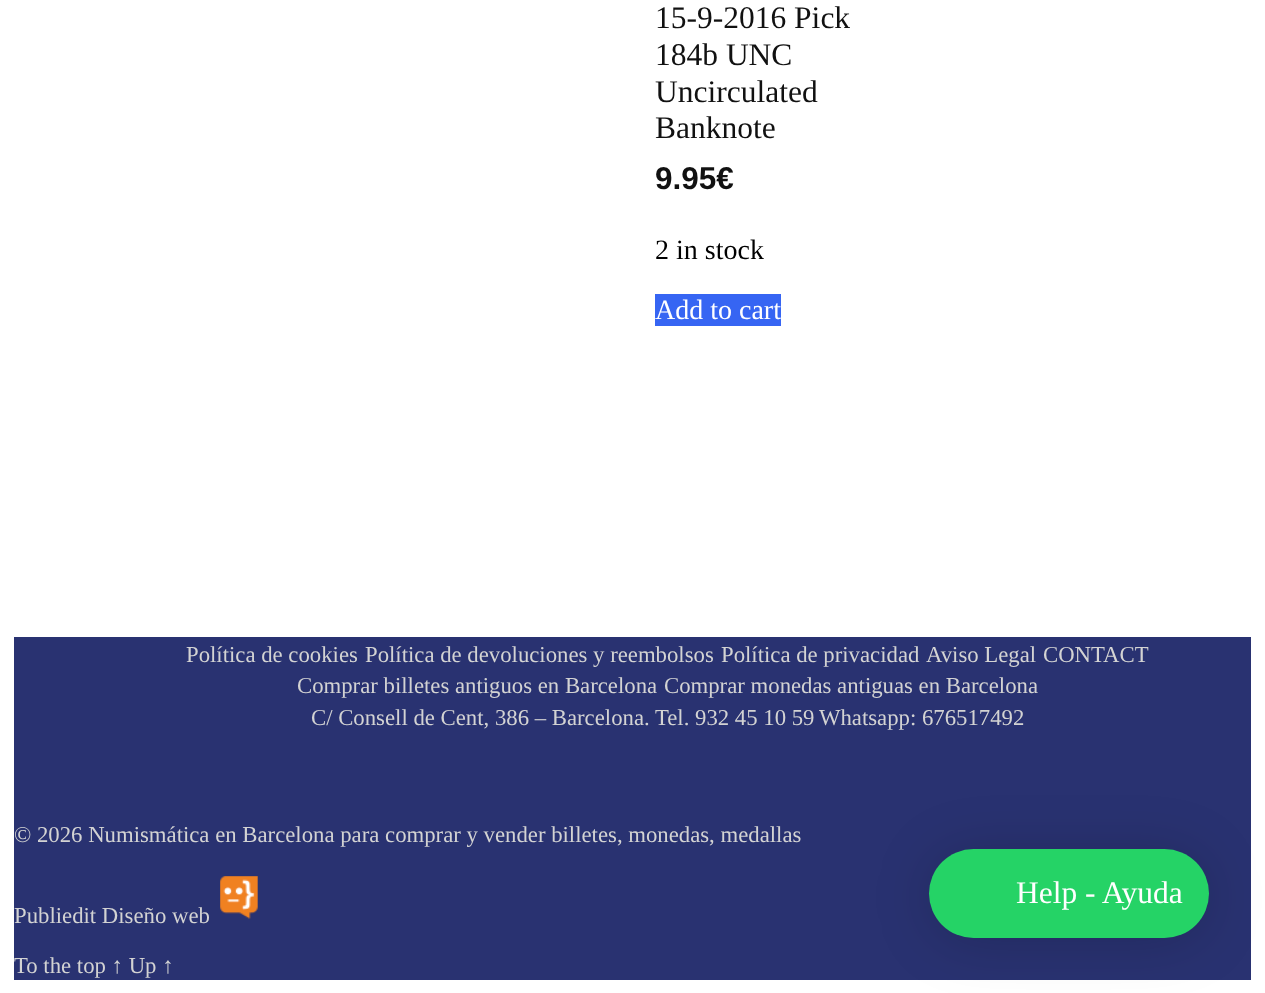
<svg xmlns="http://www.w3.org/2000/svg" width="1265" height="993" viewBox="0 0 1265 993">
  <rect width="100%" height="100%" fill="#fff"/>
  <path d="M655 294h126v32H655z" fill="#3665f3"/>
  <path d="M14 637h1237v343H14z" fill="#293271"/>
  <image x="220" y="876" width="38" height="43" href="img/1.png"/>
  <rect x="929" y="852" width="280" height="90" rx="45" fill="#00000029" filter="blur(28px)"/>
  <rect x="929" y="849" width="280" height="89" rx="44.5" fill="#25d366"/>
  <g font-family="Liberation Serif" font-size="31.5" fill="#111">
    <text x="655" y="28">15-9-2016 Pick</text>
    <text x="655" y="65">184b UNC</text>
    <text x="655" y="102">Uncirculated</text>
    <text x="655" y="138">Banknote</text>
  </g>
  <text x="655" y="189" font-family="Liberation Sans" font-size="31.5" font-weight="bold" fill="#111">9.95€</text>
  <text x="655" y="259" font-family="Liberation Serif" font-size="28" fill="#000">2 in stock</text>
  <text x="655" y="319" font-family="Liberation Serif" font-size="28" fill="#fff">Add to cart</text>
  <g font-family="Liberation Serif" font-size="22.75" fill="#d3d3d3">
    <text x="186" y="662">Política de cookies</text>
    <text x="365" y="662">Política de devoluciones y reembolsos</text>
    <text x="721" y="662">Política de privacidad</text>
    <text x="926" y="662">Aviso Legal</text>
    <text x="1043" y="662">CONTACT</text>
    <text x="297" y="693">Comprar billetes antiguos en Barcelona</text>
    <text x="664" y="693">Comprar monedas antiguas en Barcelona</text>
    <text x="311" y="725">C/ Consell de Cent, 386 – Barcelona. Tel. 932 45 10 59</text>
    <text x="819" y="725">Whatsapp: 676517492</text>
    <text x="14" y="842">© 2026 Numismática en Barcelona para comprar y vender billetes, monedas, medallas</text>
    <text x="14" y="923">Publiedit Diseño web</text>
    <text x="14" y="973">To the top ↑ Up ↑</text>
  </g>
  <text x="1016" y="903" font-family="Liberation Serif" font-size="31.5" fill="#fff">Help - Ayuda</text>
</svg>
